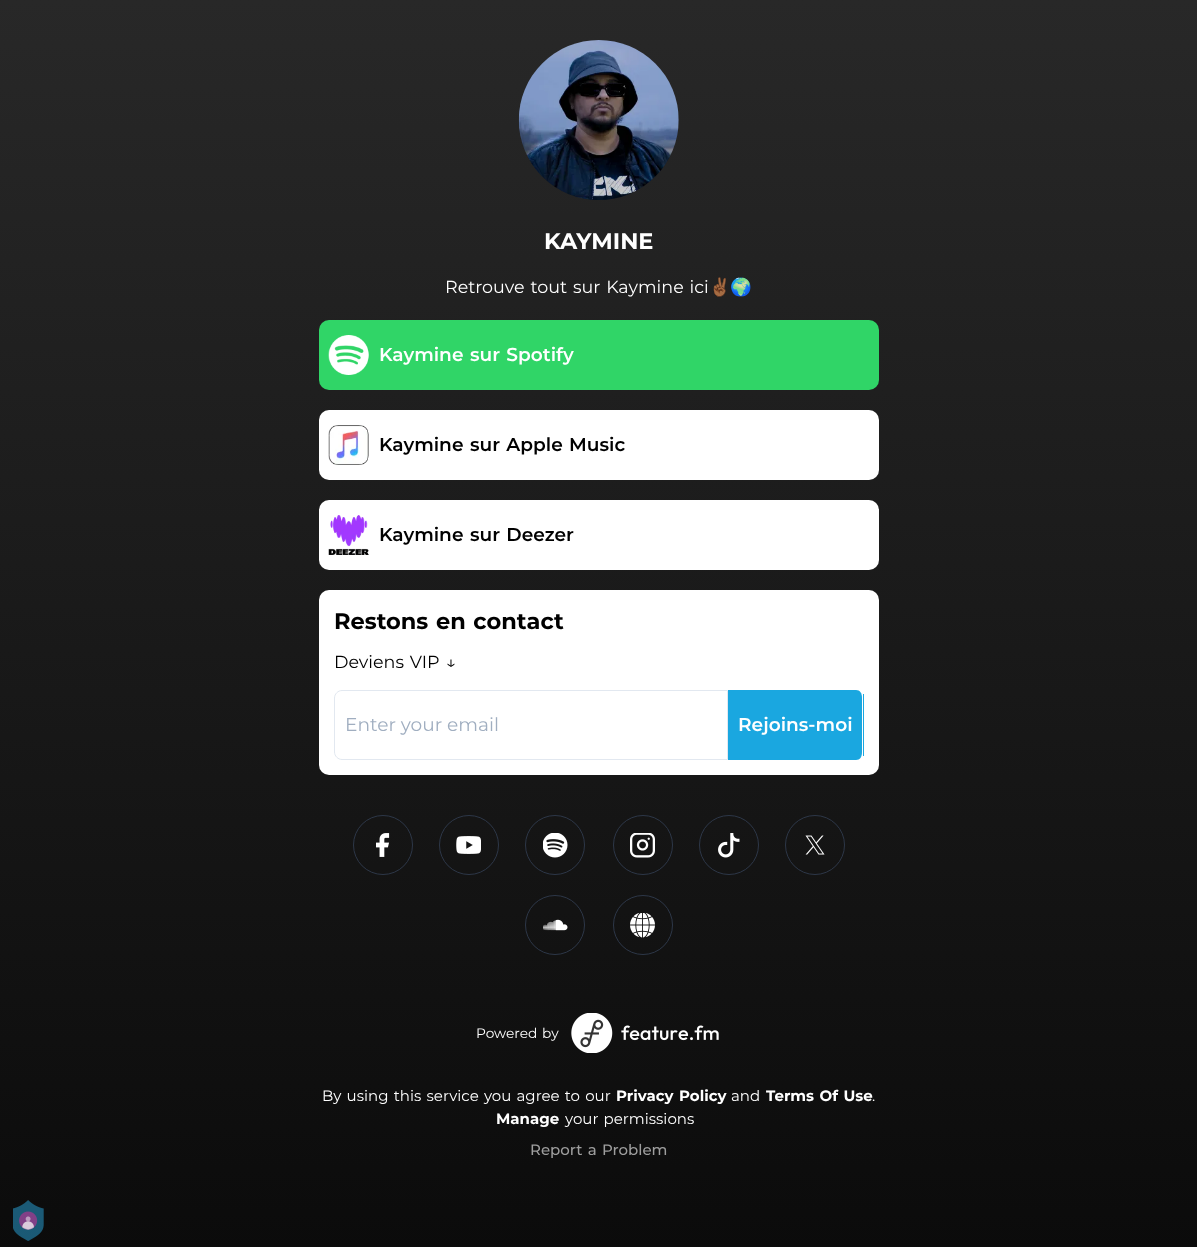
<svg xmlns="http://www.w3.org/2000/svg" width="1197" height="1247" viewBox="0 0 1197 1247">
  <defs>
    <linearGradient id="g1" gradientUnits="userSpaceOnUse" x1="599" y1="0" x2="599" y2="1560"><stop offset="0" stop-color="#282828"/><stop offset="1" stop-color="#040404"/></linearGradient>
  </defs>
  <rect width="100%" height="100%" fill="#fff"/>
  <path d="M0 0h1197v1247H0z" fill="url(#g1)"/>
  <image x="518" y="40" width="161" height="160" href="img/1.png"/>
  <rect x="319" y="320" width="560" height="70" rx="10" fill="#30d567"/>
  <image x="328" y="335" width="41" height="40" href="img/2.png"/>
  <rect x="319" y="410" width="560" height="70" rx="10" fill="#fff"/>
  <image x="328" y="425" width="41" height="40" href="img/3.png"/>
  <rect x="319" y="500" width="560" height="70" rx="10" fill="#fff"/>
  <image x="328" y="515" width="41" height="40" href="img/4.png"/>
  <rect x="319" y="590" width="560" height="185" rx="10" fill="#fff"/>
  <path d="M342 690.5H727.5V759.5H342C338 759.5 334.5 756 334.5 752V698C334.5 694 338 690.5 342 690.5Z" fill="none" stroke="#e2e8f0"/>
  <path d="M728 690H856C860 690 862 693 862 698V752C862 757 860 760 856 760H728Z" fill="#1aa7e0"/>
  <path d="M863 694h1v62H863z" fill="#1aa7e0"/>
  <circle cx="383" cy="845" r="29.5" fill="none" stroke="#2d3748"/>
  <image x="376" y="833" width="14" height="24" href="img/5.png"/>
  <circle cx="469" cy="845" r="29.5" fill="none" stroke="#2d3748"/>
  <image x="456" y="836" width="25" height="18" href="img/6.png"/>
  <circle cx="555" cy="845" r="29.5" fill="none" stroke="#2d3748"/>
  <image x="543" y="833" width="25" height="25" href="img/7.png"/>
  <circle cx="643" cy="845" r="29.5" fill="none" stroke="#2d3748"/>
  <image x="630" y="833" width="25" height="25" href="img/8.png"/>
  <circle cx="729" cy="845" r="29.5" fill="none" stroke="#2d3748"/>
  <image x="718" y="833" width="22" height="25" href="img/9.png"/>
  <circle cx="815" cy="845" r="29.5" fill="none" stroke="#2d3748"/>
  <image x="805" y="835" width="20" height="20" href="img/10.png"/>
  <circle cx="555" cy="925" r="29.5" fill="none" stroke="#2d3748"/>
  <image x="543" y="919" width="25" height="12" href="img/11.png"/>
  <circle cx="643" cy="925" r="29.5" fill="none" stroke="#2d3748"/>
  <image x="630" y="913" width="25" height="25" href="img/12.png"/>
  <image x="571" y="1013" width="148" height="40" href="img/13.png"/>
  <image x="13" y="1200" width="31" height="41" href="img/14.png"/>
  <text x="544" y="249" font-family="Montserrat" font-size="22.5" font-weight="bold" fill="#fff">KAYMINE</text>
  <text x="445" y="293" word-spacing="1.25" font-family="Montserrat" font-size="17.5" fill="#fff">Retrouve tout sur Kaymine ici</text>
  <text x="709" y="293" font-family="Noto Color Emoji" font-size="17.5" fill="#fff">✌🏾🌍</text>
  <text x="379" y="361" word-spacing="1.25" font-family="Montserrat" font-size="18.6" font-weight="600" fill="#fff">Kaymine sur Spotify</text>
  <g font-family="Montserrat" font-size="18.6" font-weight="600" fill="#000">
    <text x="379" y="451" word-spacing="1.25">Kaymine sur Apple Music</text>
    <text x="379" y="541" word-spacing="1.25">Kaymine sur Deezer</text>
  </g>
  <text x="334" y="629" word-spacing="1.25" font-family="Montserrat" font-size="22.5" font-weight="bold" fill="#000">Restons en contact</text>
  <text x="334" y="668" word-spacing="1.25" font-family="Montserrat" font-size="17.5" fill="#000">Deviens VIP ↓</text>
  <text x="345" y="731" font-family="Montserrat" font-size="18.6" fill="#a0aec0">Enter your email</text>
  <text x="738" y="731" font-family="Montserrat" font-size="18.6" font-weight="600" fill="#fff">Rejoins-moi</text>
  <text x="476" y="1038" word-spacing="1.25" font-family="Montserrat" font-size="13.75" fill="#fff">Powered by</text>
  <text x="322" y="1101" word-spacing="1.25" font-family="Montserrat" font-size="15" fill="#fff">By using this service you agree to our</text>
  <text x="616" y="1101" word-spacing="1.25" font-family="Montserrat" font-size="15" font-weight="bold" fill="#fff">Privacy Policy</text>
  <text x="731" y="1101" font-family="Montserrat" font-size="15" fill="#fff">and</text>
  <text x="766" y="1101" word-spacing="1.25" font-family="Montserrat" font-size="15" font-weight="bold" fill="#fff">Terms Of Use</text>
  <text x="872" y="1101" font-family="Montserrat" font-size="15" fill="#fff">.</text>
  <text x="496" y="1124" font-family="Montserrat" font-size="15" font-weight="bold" fill="#fff">Manage</text>
  <text x="565" y="1124" word-spacing="1.25" font-family="Montserrat" font-size="15" fill="#fff">your permissions</text>
  <text x="530" y="1155" word-spacing="1.25" font-family="Montserrat" font-size="15" font-weight="500" fill="#9e9e9e">Report a Problem</text>
</svg>
